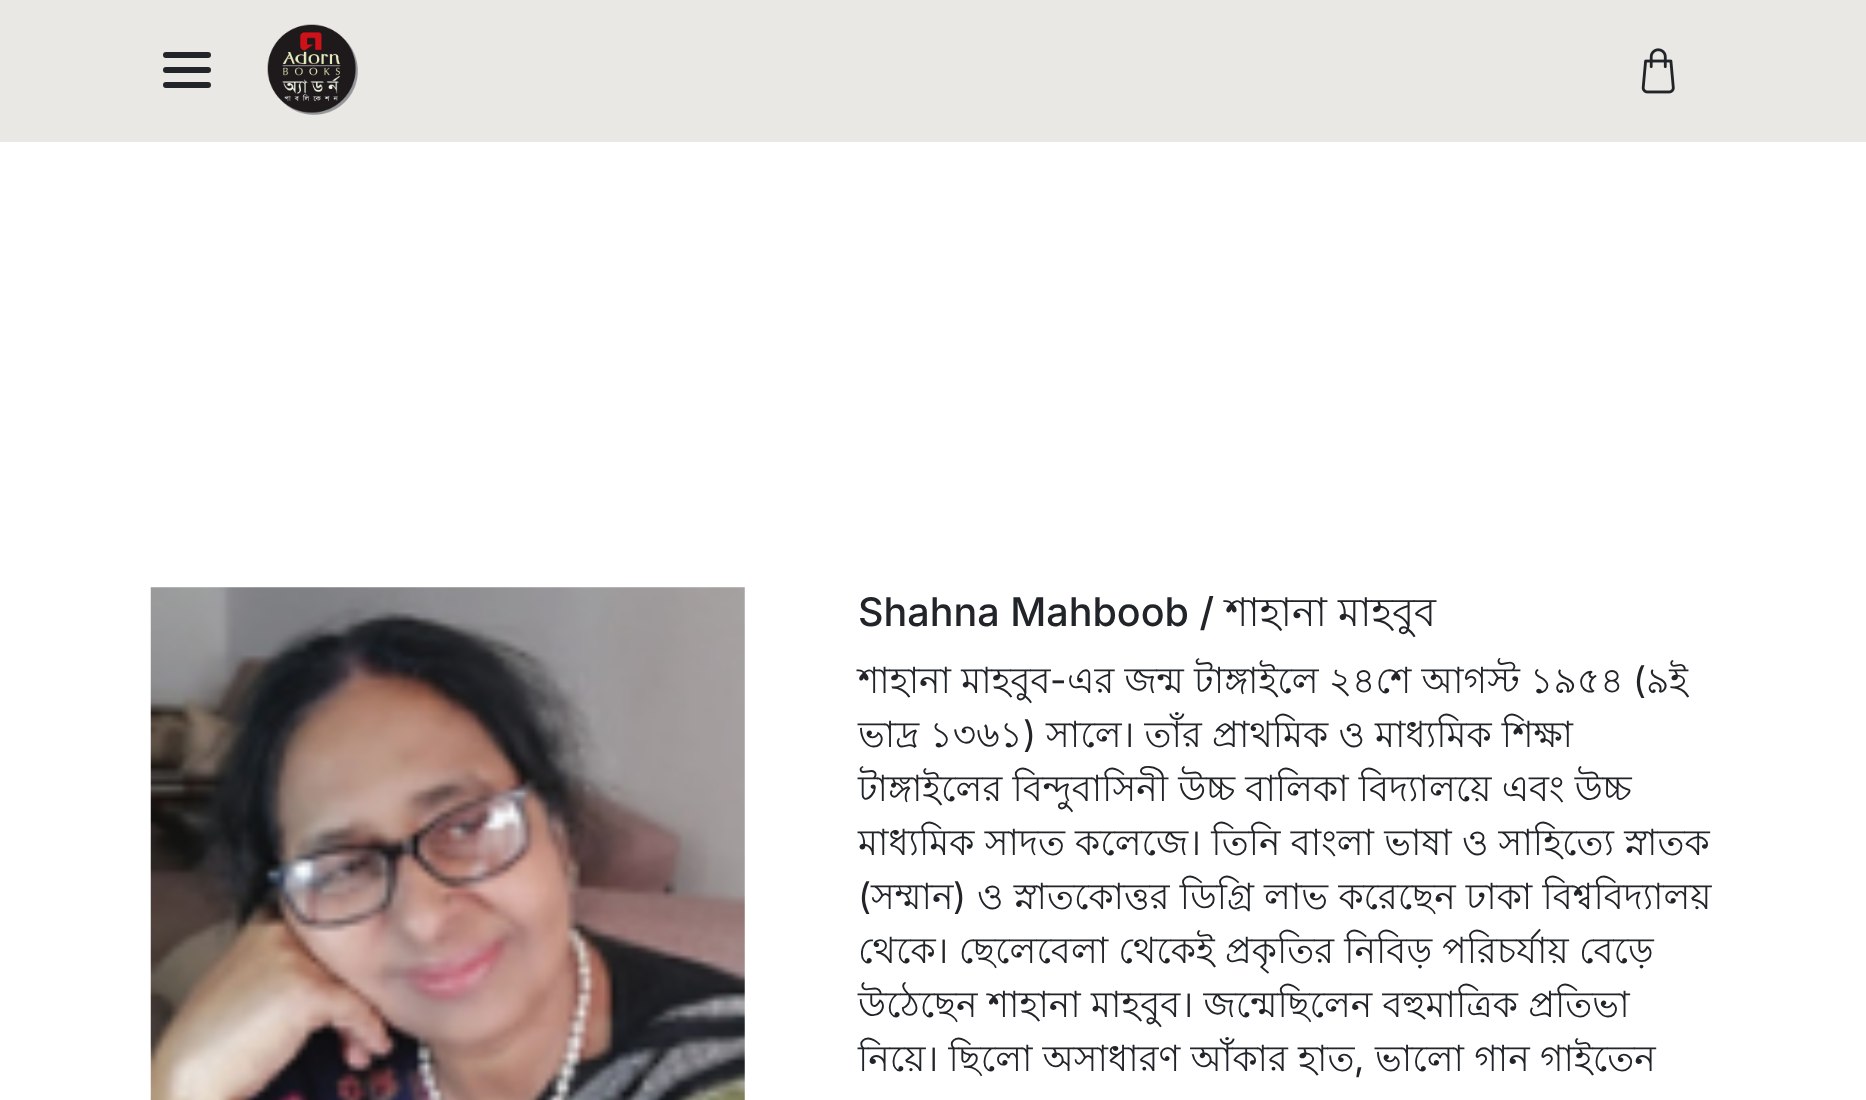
<svg xmlns="http://www.w3.org/2000/svg" width="1866" height="1100" viewBox="0 0 1866 1100">
  <rect width="100%" height="100%" fill="#fff"/>
  <path d="M0 0h1866v142H0z" fill="#eae8e4"/>
  <path d="M166 85H208M166 70H208M166 55H208" fill="none" stroke="#212529" stroke-width="6" stroke-linecap="round" stroke-linejoin="round"/>
  <image x="267" y="24" width="91" height="91" href="img/1.png"/>
  <image x="1641" y="48" width="34" height="46" href="img/2.png"/>
  <image x="150" y="587" width="595" height="513" href="img/3.png"/>
  <text x="858" y="626" font-family="Inter" font-size="39.5" font-weight="500" fill="#212529">Shahna Mahboob /</text>
  <g font-family="Lohit Bengali" font-size="39.5" fill="#212529">
    <text x="1225" y="626">শাহানা</text>
    <text x="1338" y="626">মাহবুব</text>
  </g>
  <text x="858" y="693" word-spacing="0.25" font-family="Lohit Bengali" font-size="36" fill="#212529">শাহানা মাহবুব</text>
  <text x="1050" y="693" font-family="Inter" font-size="36" fill="#212529">-</text>
  <text x="1067" y="693" word-spacing="0.25" font-family="Lohit Bengali" font-size="36" fill="#212529">এর জন্ম টাঙ্গাইলে ২৪শে আগস্ট ১৯৫৪</text>
  <text x="1633" y="693" font-family="Inter" font-size="36" fill="#212529">(</text>
  <g font-family="Lohit Bengali" font-size="36" fill="#212529">
    <text x="1646" y="693">৯ই</text>
    <text x="858" y="747" word-spacing="0.25">ভাদ্র ১৩৬১</text>
  </g>
  <text x="1023" y="747" font-family="Inter" font-size="36" fill="#212529">)</text>
  <g font-family="Lohit Bengali" font-size="36" fill="#212529">
    <text x="1046" y="747" word-spacing="0.25">সালে। তাঁর প্রাথমিক ও মাধ্যমিক শিক্ষা</text>
    <text x="858" y="801" word-spacing="0.25">টাঙ্গাইলের বিন্দুবাসিনী উচ্চ বালিকা বিদ্যালয়ে এবং উচ্চ</text>
    <text x="858" y="855" word-spacing="0.25">মাধ্যমিক সাদত কলেজে। তিনি বাংলা ভাষা ও সাহিত্যে স্নাতক</text>
  </g>
  <text x="858" y="909" font-family="Inter" font-size="36" fill="#212529">(</text>
  <text x="871" y="909" font-family="Lohit Bengali" font-size="36" fill="#212529">সম্মান</text>
  <text x="953" y="909" font-family="Inter" font-size="36" fill="#212529">)</text>
  <g font-family="Lohit Bengali" font-size="36" fill="#212529">
    <text x="977" y="909" word-spacing="0.25">ও স্নাতকোত্তর ডিগ্রি লাভ করেছেন ঢাকা বিশ্ববিদ্যালয়</text>
    <text x="858" y="963" word-spacing="0.25">থেকে। ছেলেবেলা থেকেই প্রকৃতির নিবিড় পরিচর্যায় বেড়ে</text>
    <text x="858" y="1017" word-spacing="0.25">উঠেছেন শাহানা মাহবুব। জন্মেছিলেন বহুমাত্রিক প্রতিভা</text>
    <text x="858" y="1071" word-spacing="0.25">নিয়ে। ছিলো অসাধারণ আঁকার হাত</text>
  </g>
  <text x="1354" y="1071" font-family="Inter" font-size="36" fill="#212529">,</text>
  <text x="1375" y="1071" word-spacing="0.25" font-family="Lohit Bengali" font-size="36" fill="#212529">ভালো গান গাইতেন</text>
</svg>
